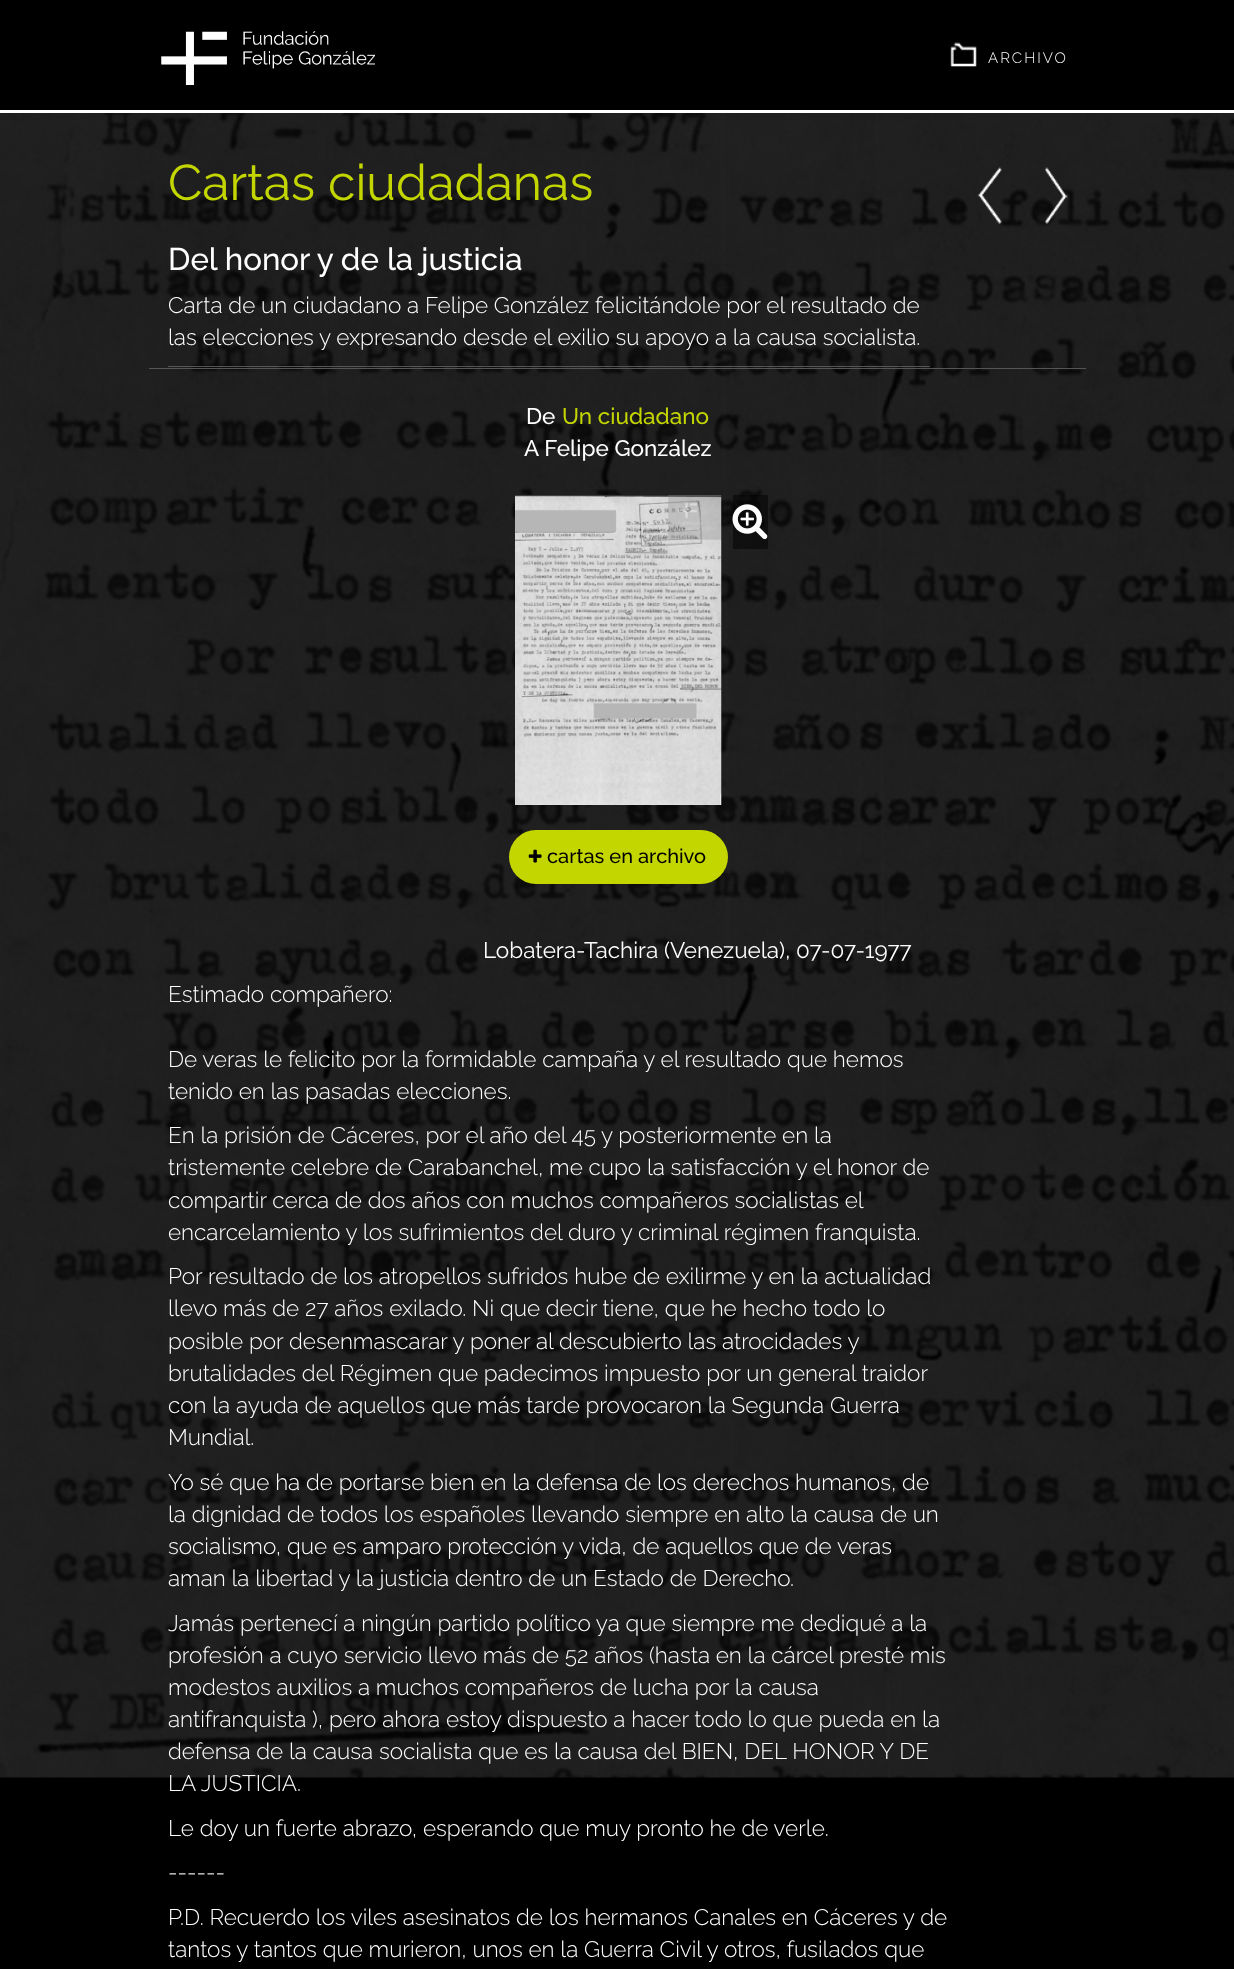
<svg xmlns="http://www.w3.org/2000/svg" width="1234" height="1969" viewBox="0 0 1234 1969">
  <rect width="100%" height="100%" fill="#000"/>
  <path d="M0 110h1234v3H0z" fill="#fff"/>
  <image x="161" y="31" width="214" height="54" href="img/1.png"/>
  <image x="950" y="42" width="27" height="25" href="img/2.png"/>
  <image x="0" y="113" width="1234" height="1665" href="img/3.png"/>
  <path d="M149 368h937v1H149z" fill="#555"/>
  <image x="977" y="167" width="25" height="57" href="img/4.png"/>
  <image x="1044" y="167" width="24" height="57" href="img/5.png"/>
  <path d="M168 366h762v1H168z" fill="#555"/>
  <image x="515" y="495" width="207" height="310" href="img/6.png"/>
  <path d="M733 495h35v54H733z" fill="#00000080"/>
  <image x="732" y="504" width="36" height="36" href="img/7.png"/>
  <rect x="509" y="830" width="219" height="54" rx="27" fill="#c4d600"/>
  <image x="528" y="849" width="14" height="14" href="img/8.png"/>
  <text x="988" y="63" font-family="Raleway" font-size="15" font-weight="300" letter-spacing="2" fill="#fff">ARCHIVO</text>
  <text x="168" y="200" font-family="Raleway" font-size="50" fill="#c4d600">Cartas ciudadanas</text>
  <text x="168" y="270" font-family="Raleway" font-size="31.25" font-weight="500" fill="#fff">Del honor y de la justicia</text>
  <g font-family="Raleway" font-size="22.5" font-weight="300" fill="#fff">
    <text x="168" y="313">Carta de un ciudadano a Felipe González felicitándole por el resultado de</text>
    <text x="168" y="345">las elecciones y expresando desde el exilio su apoyo a la causa socialista.</text>
  </g>
  <text x="526" y="424" font-family="Raleway" font-size="22.5" font-weight="500" fill="#fff">De</text>
  <text x="562" y="424" font-family="Raleway" font-size="22.5" font-weight="500" fill="#c4d600">Un ciudadano</text>
  <text x="524" y="456" font-family="Raleway" font-size="22.5" font-weight="500" fill="#fff">A Felipe González</text>
  <text x="547" y="863" font-family="Raleway" font-size="20" font-weight="500" fill="#000">cartas en archivo</text>
  <text x="483" y="958" font-family="Raleway" font-size="22.5" fill="#fff">Lobatera-Tachira (Venezuela), 07-07-1977</text>
  <g font-family="Raleway" font-size="22.5" font-weight="300" fill="#fff">
    <text x="168" y="1002">Estimado compañero:</text>
    <text x="168" y="1067">De veras le felicito por la formidable campaña y el resultado que hemos</text>
    <text x="168" y="1099">tenido en las pasadas elecciones.</text>
    <text x="168" y="1143">En la prisión de Cáceres, por el año del 45 y posteriormente en la</text>
    <text x="168" y="1175">tristemente celebre de Carabanchel, me cupo la satisfacción y el honor de</text>
    <text x="168" y="1208">compartir cerca de dos años con muchos compañeros socialistas el</text>
    <text x="168" y="1240">encarcelamiento y los sufrimientos del duro y criminal régimen franquista.</text>
    <text x="168" y="1284">Por resultado de los atropellos sufridos hube de exilirme y en la actualidad</text>
    <text x="168" y="1316">llevo más de 27 años exilado. Ni que decir tiene, que he hecho todo lo</text>
    <text x="168" y="1349">posible por desenmascarar y poner al descubierto las atrocidades y</text>
    <text x="168" y="1381">brutalidades del Régimen que padecimos impuesto por un general traidor</text>
    <text x="168" y="1413">con la ayuda de aquellos que más tarde provocaron la Segunda Guerra</text>
    <text x="168" y="1445">Mundial.</text>
    <text x="168" y="1490">Yo sé que ha de portarse bien en la defensa de los derechos humanos, de</text>
    <text x="168" y="1522">la dignidad de todos los españoles llevando siempre en alto la causa de un</text>
    <text x="168" y="1554">socialismo, que es amparo protección y vida, de aquellos que de veras</text>
    <text x="168" y="1586">aman la libertad y la justicia dentro de un Estado de Derecho.</text>
    <text x="168" y="1631">Jamás pertenecí a ningún partido político ya que siempre me dediqué a la</text>
    <text x="168" y="1663">profesión a cuyo servicio llevo más de 52 años (hasta en la cárcel presté mis</text>
    <text x="168" y="1695">modestos auxilios a muchos compañeros de lucha por la causa</text>
    <text x="168" y="1727">antifranquista ), pero ahora estoy dispuesto a hacer todo lo que pueda en la</text>
    <text x="168" y="1759">defensa de la causa socialista que es la causa del BIEN, DEL HONOR Y DE</text>
    <text x="168" y="1791">LA JUSTICIA.</text>
    <text x="168" y="1836">Le doy un fuerte abrazo, esperando que muy pronto he de verle.</text>
    <text x="168" y="1880">------</text>
    <text x="168" y="1925">P.D. Recuerdo los viles asesinatos de los hermanos Canales en Cáceres y de</text>
    <text x="168" y="1957">tantos y tantos que murieron, unos en la Guerra Civil y otros, fusilados que</text>
  </g>
</svg>
